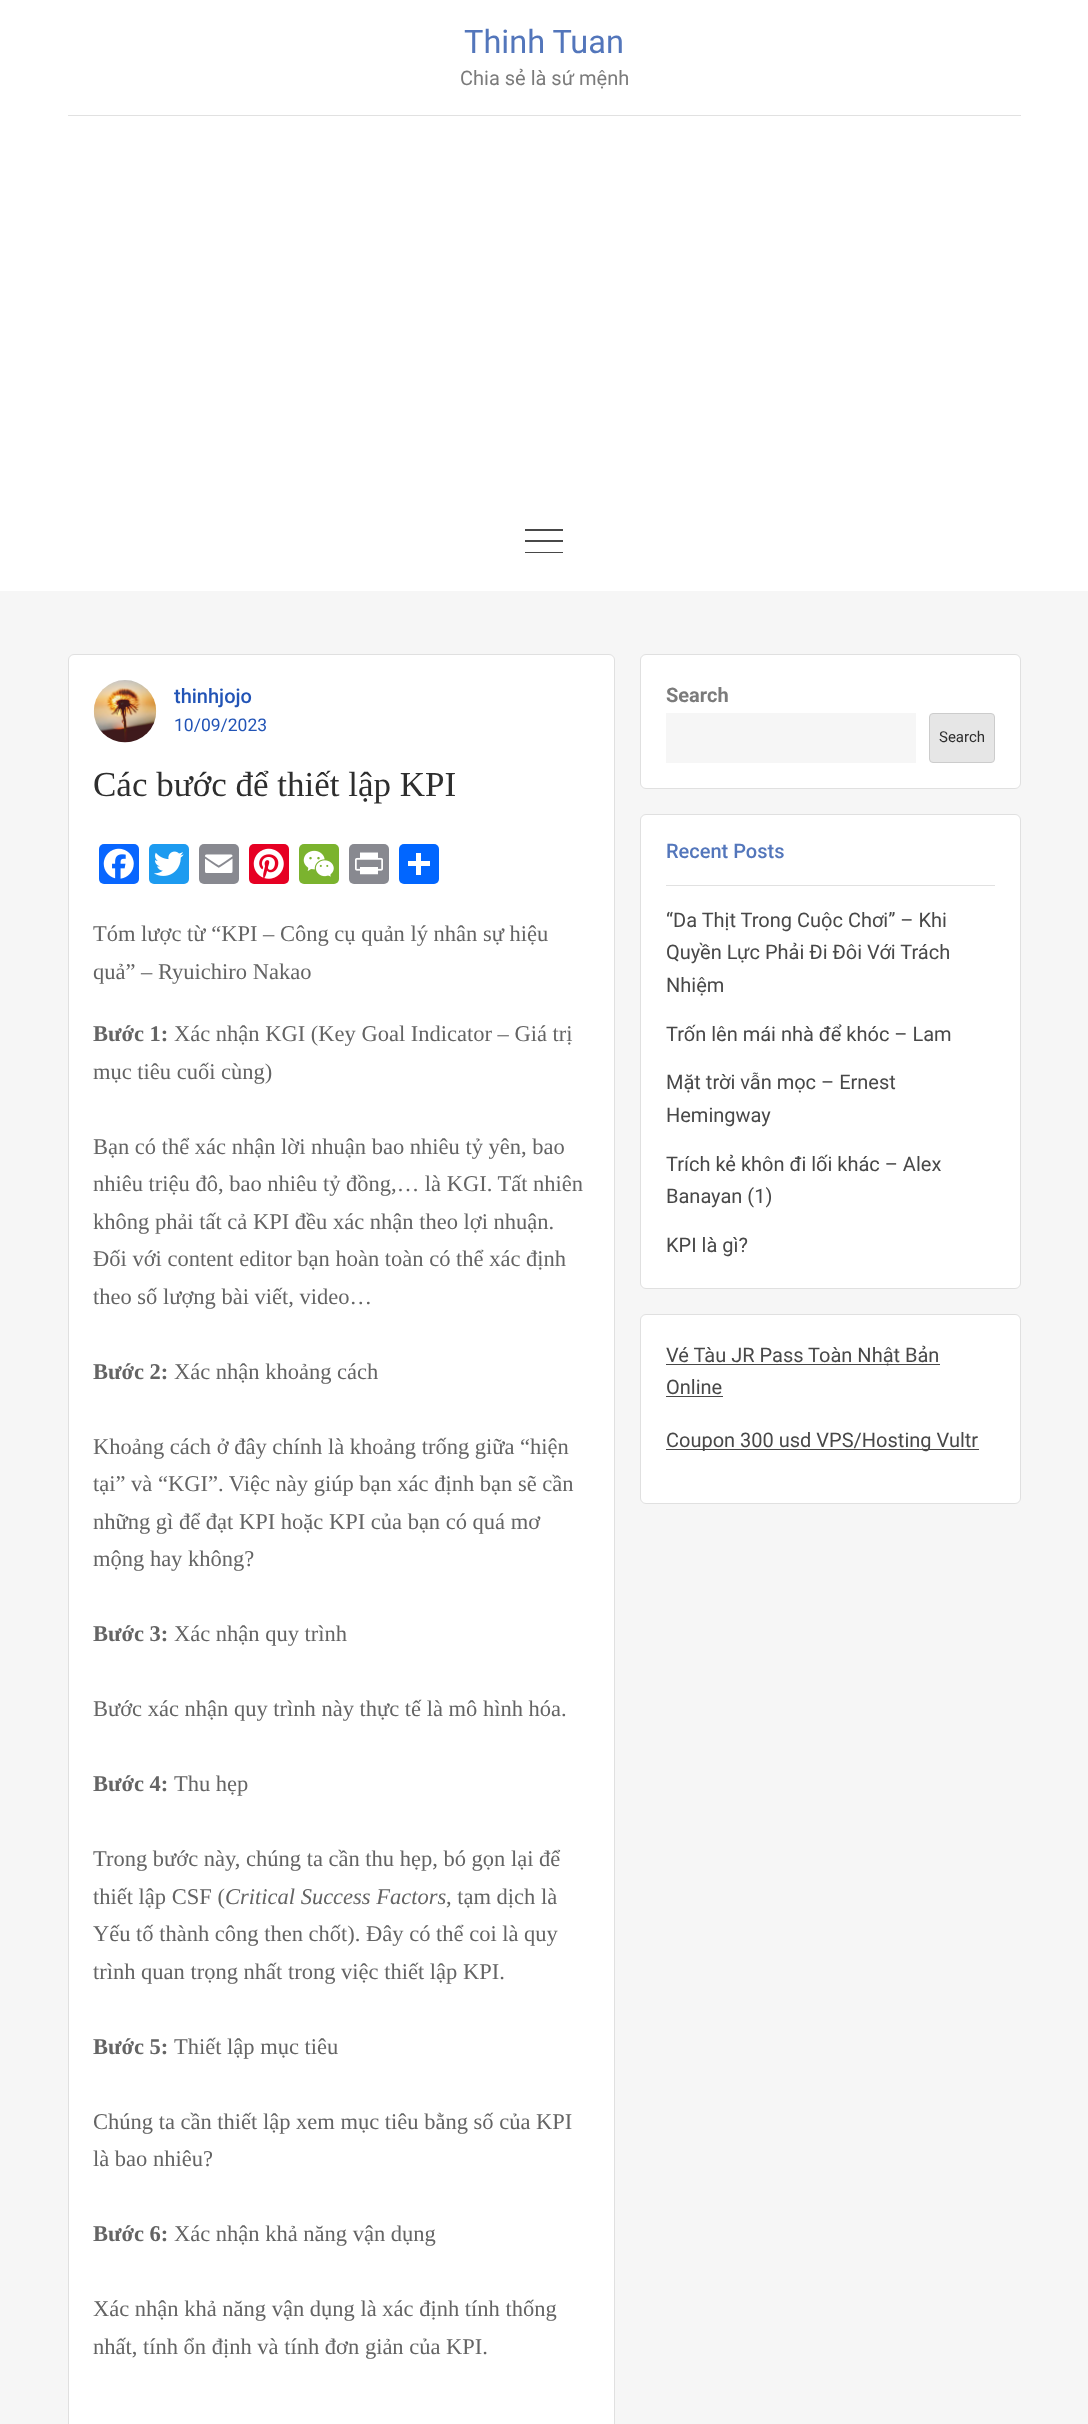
<svg xmlns="http://www.w3.org/2000/svg" width="1088" height="2424" viewBox="0 0 1088 2424">
  <rect width="100%" height="100%" fill="#f6f6f6"/>
  <path d="M0 0h1088v591H0z" fill="#fff"/>
  <path d="M68 115h953v1H68z" fill="#e1e1e1"/>
  <path d="M525 529h38v2H525z" fill="#484848"/>
  <path d="M525 540h38v2H525z" fill="#484848"/>
  <path d="M525 552h38v1H525z" fill="#484848"/>
  <rect x="68.5" y="654.5" width="546" height="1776" rx="5.5" fill="#fff" stroke="#e0e0e0"/>
  <image x="93" y="680" width="64" height="63" href="img/1.png"/>
  <rect x="99" y="844" width="40" height="40" rx="5" fill="#0866ff"/>
  <image x="103" y="848" width="31" height="31" href="img/2.png"/>
  <rect x="149" y="844" width="40" height="40" rx="5" fill="#1d9bf0"/>
  <image x="154" y="851" width="30" height="25" href="img/3.png"/>
  <rect x="199" y="844" width="40" height="40" rx="5" fill="#888990"/>
  <image x="205" y="854" width="28" height="19" href="img/4.png"/>
  <rect x="249" y="844" width="40" height="40" rx="5" fill="#e60023"/>
  <image x="253" y="848" width="31" height="31" href="img/5.png"/>
  <rect x="299" y="844" width="40" height="40" rx="5" fill="#7bb32e"/>
  <image x="303" y="850" width="31" height="27" href="img/6.png"/>
  <rect x="349" y="844" width="40" height="40" rx="5" fill="#888990"/>
  <image x="355" y="852" width="28" height="23" href="img/7.png"/>
  <rect x="399" y="844" width="40" height="40" rx="5" fill="#0166ff"/>
  <path d="M416 853h5v22H416z" fill="#fff"/>
  <path d="M408 861h22v5H408z" fill="#fff"/>
  <rect x="640.5" y="654.5" width="380" height="134" rx="5.5" fill="#fff" stroke="#e0e0e0"/>
  <path d="M666 713h250v50H666z" fill="#f6f6f6"/>
  <rect x="929.5" y="713.5" width="65" height="49" rx="3.5" fill="#e6e6e6" stroke="#ccc"/>
  <rect x="640.5" y="814.5" width="380" height="474" rx="5.5" fill="#fff" stroke="#e0e0e0"/>
  <path d="M666 885h329v1H666z" fill="#e1e1e1"/>
  <rect x="640.5" y="1314.5" width="380" height="189" rx="5.5" fill="#fff" stroke="#e0e0e0"/>
  <path d="M666 1364h274v1H666z" fill="#484848"/>
  <path d="M666 1396h57v1H666z" fill="#484848"/>
  <path d="M666 1449h313v1H666z" fill="#484848"/>
  <text x="464" y="53" font-family="Roboto" font-size="32.5" fill="#5376bb">Thinh Tuan</text>
  <text x="460" y="85" font-family="Roboto" font-size="20" fill="#7b7b7b">Chia sẻ là sứ mệnh</text>
  <text x="174" y="703" font-family="Roboto" font-size="20" font-weight="500" fill="#2254b6">thinhjojo</text>
  <text x="174" y="731" font-family="Roboto" font-size="17.5" fill="#2254b6">10/09/2023</text>
  <text x="93" y="796" font-family="Liberation Serif" font-size="35" fill="#2e2e2e">Các bước để thiết lập KPI</text>
  <g font-family="Liberation Serif" font-size="22.5" fill="#646464">
    <text x="93" y="941">Tóm lược từ “KPI – Công cụ quản lý nhân sự hiệu</text>
    <text x="93" y="979">quả” – Ryuichiro Nakao</text>
  </g>
  <text x="93" y="1041" font-family="Liberation Serif" font-size="22.5" font-weight="bold" fill="#646464">Bước 1:</text>
  <g font-family="Liberation Serif" font-size="22.5" fill="#646464">
    <text x="174" y="1041">Xác nhận KGI (Key Goal Indicator – Giá trị</text>
    <text x="93" y="1079">mục tiêu cuối cùng)</text>
    <text x="93" y="1154">Bạn có thể xác nhận lời nhuận bao nhiêu tỷ yên, bao</text>
    <text x="93" y="1191">nhiêu triệu đô, bao nhiêu tỷ đồng,… là KGI. Tất nhiên</text>
    <text x="93" y="1229">không phải tất cả KPI đều xác nhận theo lợi nhuận.</text>
    <text x="93" y="1266">Đối với content editor bạn hoàn toàn có thể xác định</text>
    <text x="93" y="1304">theo số lượng bài viết, video…</text>
  </g>
  <text x="93" y="1379" font-family="Liberation Serif" font-size="22.5" font-weight="bold" fill="#646464">Bước 2:</text>
  <g font-family="Liberation Serif" font-size="22.5" fill="#646464">
    <text x="174" y="1379">Xác nhận khoảng cách</text>
    <text x="93" y="1454">Khoảng cách ở đây chính là khoảng trống giữa “hiện</text>
    <text x="93" y="1491">tại” và “KGI”. Việc này giúp bạn xác định bạn sẽ cần</text>
    <text x="93" y="1529">những gì để đạt KPI hoặc KPI của bạn có quá mơ</text>
    <text x="93" y="1566">mộng hay không?</text>
  </g>
  <text x="93" y="1641" font-family="Liberation Serif" font-size="22.5" font-weight="bold" fill="#646464">Bước 3:</text>
  <g font-family="Liberation Serif" font-size="22.5" fill="#646464">
    <text x="174" y="1641">Xác nhận quy trình</text>
    <text x="93" y="1716">Bước xác nhận quy trình này thực tế là mô hình hóa.</text>
  </g>
  <text x="93" y="1791" font-family="Liberation Serif" font-size="22.5" font-weight="bold" fill="#646464">Bước 4:</text>
  <g font-family="Liberation Serif" font-size="22.5" fill="#646464">
    <text x="174" y="1791">Thu hẹp</text>
    <text x="93" y="1866">Trong bước này, chúng ta cần thu hẹp, bó gọn lại để</text>
    <text x="93" y="1904">thiết lập CSF (</text>
  </g>
  <text x="225" y="1904" font-family="Liberation Serif" font-size="22.5" font-style="italic" fill="#646464">Critical Success Factors</text>
  <g font-family="Liberation Serif" font-size="22.5" fill="#646464">
    <text x="446" y="1904">, tạm dịch là</text>
    <text x="93" y="1941">Yếu tố thành công then chốt). Đây có thể coi là quy</text>
    <text x="93" y="1979">trình quan trọng nhất trong việc thiết lập KPI.</text>
  </g>
  <text x="93" y="2054" font-family="Liberation Serif" font-size="22.5" font-weight="bold" fill="#646464">Bước 5:</text>
  <g font-family="Liberation Serif" font-size="22.5" fill="#646464">
    <text x="174" y="2054">Thiết lập mục tiêu</text>
    <text x="93" y="2129">Chúng ta cần thiết lập xem mục tiêu bằng số của KPI</text>
    <text x="93" y="2166">là bao nhiêu?</text>
  </g>
  <text x="93" y="2241" font-family="Liberation Serif" font-size="22.5" font-weight="bold" fill="#646464">Bước 6:</text>
  <g font-family="Liberation Serif" font-size="22.5" fill="#646464">
    <text x="174" y="2241">Xác nhận khả năng vận dụng</text>
    <text x="93" y="2316">Xác nhận khả năng vận dụng là xác định tính thống</text>
    <text x="93" y="2354">nhất, tính ổn định và tính đơn giản của KPI.</text>
  </g>
  <text x="666" y="702" font-family="Roboto" font-size="20" font-weight="bold" fill="#7b7b7b">Search</text>
  <text x="939" y="742" font-family="Roboto" font-size="15" fill="#2e2e2e">Search</text>
  <text x="666" y="858" font-family="Roboto" font-size="20" font-weight="500" fill="#5376bb">Recent Posts</text>
  <g font-family="Roboto" font-size="20" fill="#484848">
    <text x="666" y="927">“Da Thịt Trong Cuộc Chơi” – Khi</text>
    <text x="666" y="959">Quyền Lực Phải Đi Đôi Với Trách</text>
    <text x="666" y="992">Nhiệm</text>
    <text x="666" y="1041">Trốn lên mái nhà để khóc – Lam</text>
    <text x="666" y="1089">Mặt trời vẫn mọc – Ernest</text>
    <text x="666" y="1122">Hemingway</text>
    <text x="666" y="1171">Trích kẻ khôn đi lối khác – Alex</text>
    <text x="666" y="1203">Banayan (1)</text>
    <text x="666" y="1252">KPI là gì?</text>
    <text x="666" y="1362">Vé Tàu JR Pass Toàn Nhật Bản</text>
    <text x="666" y="1394">Online</text>
    <text x="666" y="1447">Coupon 300 usd VPS/Hosting Vultr</text>
  </g>
</svg>
